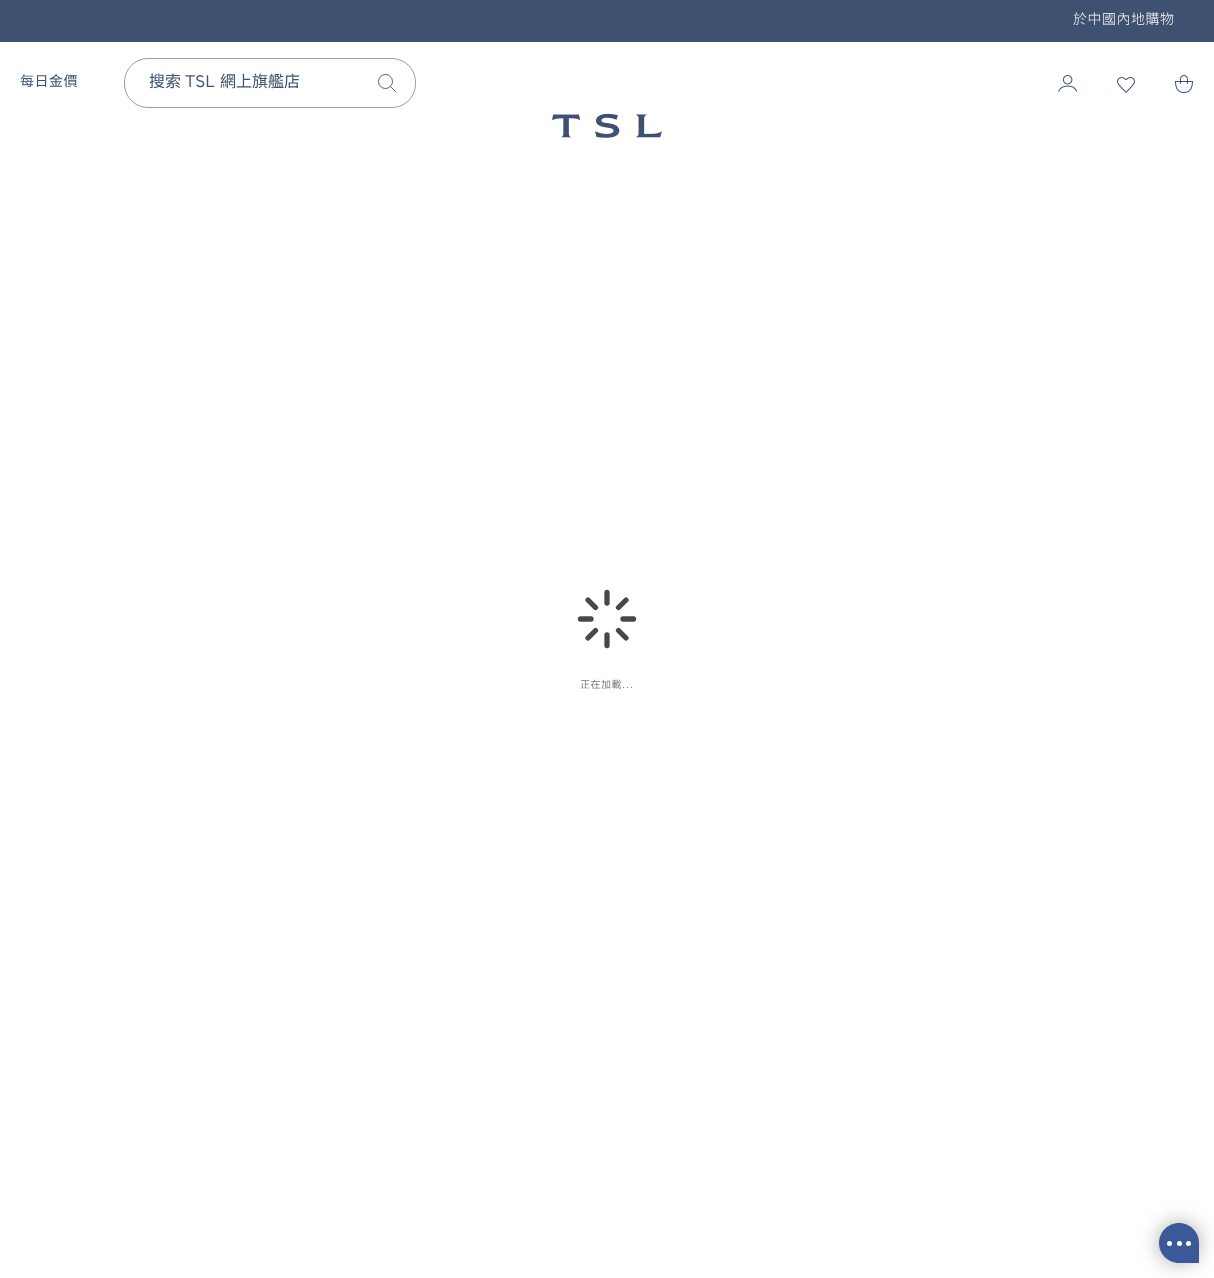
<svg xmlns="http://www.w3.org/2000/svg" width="1214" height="1278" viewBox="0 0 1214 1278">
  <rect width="100%" height="100%" fill="#fff"/>
  <path d="M0 0h1214v42H0z" fill="#3e5170"/>
  <rect x="124.5" y="58.5" width="291" height="49" rx="23.5" fill="none" stroke="#8e9fbc"/>
  <path d="M390.5 86.5L395.5 91.5" fill="none" stroke="#3e5170" stroke-width="0.9" stroke-linecap="round" stroke-linejoin="round"/>
  <circle cx="385.5" cy="81.5" r="7" fill="none" stroke="#3e5170" stroke-width="0.9"/>
  <image x="1058" y="75" width="20" height="17" href="img/1.png"/>
  <image x="1117" y="77" width="18" height="16" href="img/2.png"/>
  <image x="1175" y="75" width="18" height="18" href="img/3.png"/>
  <image x="552" y="113" width="110" height="25" href="img/4.png"/>
  <path d="M607 592.5V603M607 635V645.5M588 600L595.5 607.5M618.5 630.5L626 638M580.5 619H591M623 619H633.5M588 638L595.5 630.5M618.5 607.5L626 600" fill="none" stroke="#484848" stroke-width="5.3" stroke-linecap="round" stroke-linejoin="round"/>
  <rect x="1159" y="1223" width="40" height="40" rx="20" fill="#777777a3" filter="blur(10px)"/>
  <path d="M1179 1223C1190 1223 1199 1232 1199 1243V1263H1179C1168 1263 1159 1254 1159 1243C1159 1232 1168 1223 1179 1223Z" fill="#3b5998"/>
  <circle cx="1169.5" cy="1243.5" r="2.5" fill="#fff"/>
  <circle cx="1179.5" cy="1243.5" r="2.5" fill="#fff"/>
  <circle cx="1188.5" cy="1243.5" r="2.5" fill="#fff"/>
  <text x="1073" y="24" font-family="Noto Sans TC" font-size="14" font-weight="300" letter-spacing="0.5" fill="#fff">於中國內地購物</text>
  <text x="20" y="86" font-family="Noto Sans TC" font-size="14" letter-spacing="0.5" fill="#3e5170">每日金價</text>
  <text x="149" y="87" font-family="Noto Sans TC" font-size="16" fill="#3e5170">搜索</text>
  <text x="185" y="87" font-family="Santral" font-size="16" fill="#3e5170">TSL</text>
  <text x="220" y="87" font-family="Noto Sans TC" font-size="16" fill="#3e5170">網上旗艦店</text>
  <text x="580" y="688" font-family="Noto Sans TC" font-size="10" letter-spacing="0.5" fill="#767b7f">正在加載</text>
  <text x="622" y="688" font-family="Santral" font-size="10" letter-spacing="0.5" fill="#767b7f">...</text>
</svg>
